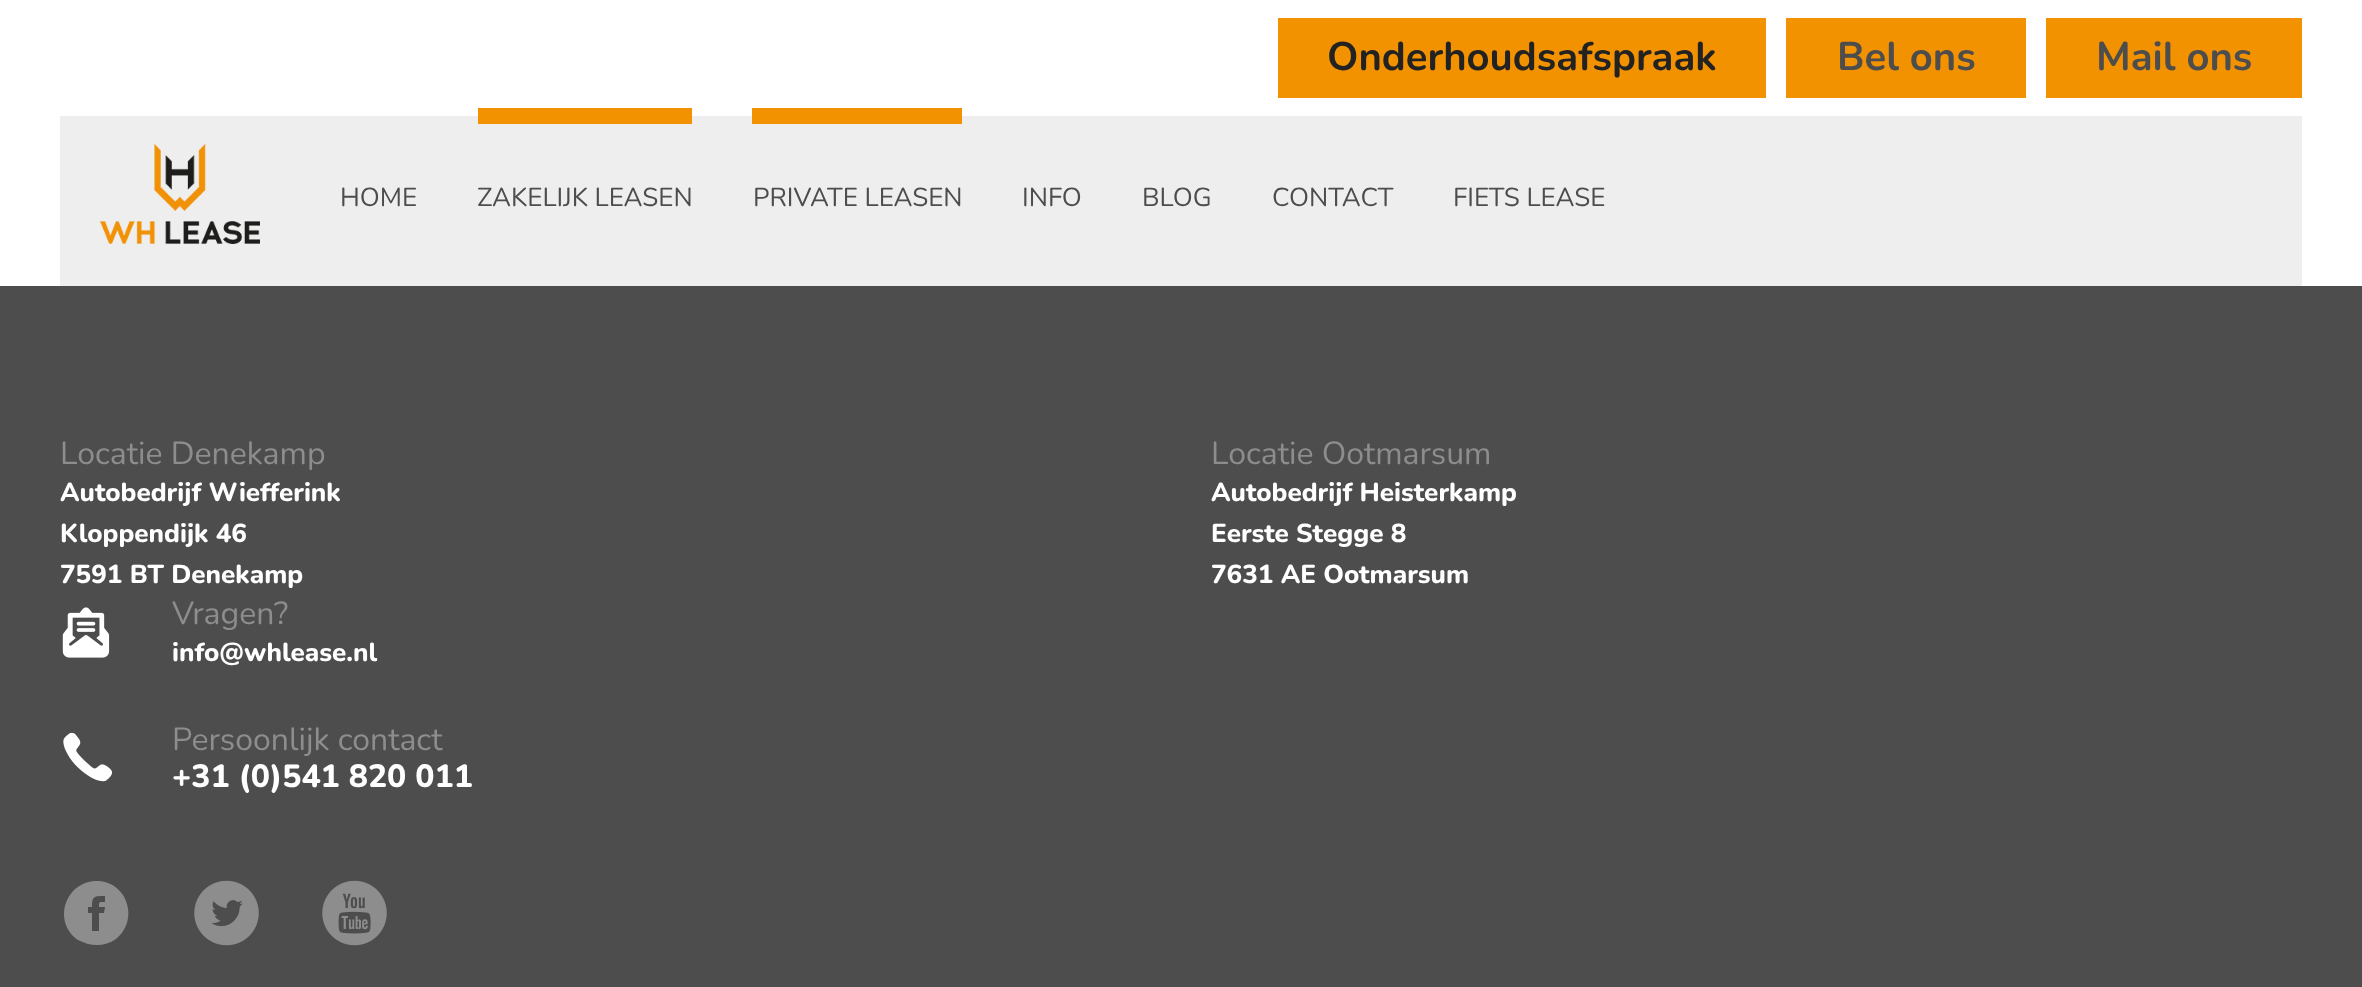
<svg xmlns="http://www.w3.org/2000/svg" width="2362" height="987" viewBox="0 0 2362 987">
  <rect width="100%" height="100%" fill="#fff"/>
  <path d="M1278 18h488v80H1278z" fill="#f39200"/>
  <path d="M1786 18h240v80H1786z" fill="#f39200"/>
  <path d="M2046 18h256v80H2046z" fill="#f39200"/>
  <path d="M60 116h2242v170H60z" fill="#eee"/>
  <image x="100" y="144" width="160" height="100" href="img/1.png"/>
  <path d="M478 108h214v16H478z" fill="#f39200"/>
  <path d="M752 108h210v16H752z" fill="#f39200"/>
  <path d="M0 286h2362v701H0z" fill="#4d4d4d"/>
  <image x="62" y="607" width="48" height="51" href="img/2.png"/>
  <image x="63" y="732" width="50" height="50" href="img/3.png"/>
  <path d="M92 931H99V913H104L105 907H99C99 901 99 902 105 902V896C94 896 92 896 92 907H88V913H92ZM97 945C90 945 84 943 78 940C52 922 65 881 97 881C127 881 140 920 116 939C110 943 104 945 97 945Z" fill="#8d8d8d"/>
  <image x="194" y="880" width="65" height="66" href="img/4.png"/>
  <image x="322" y="880" width="65" height="66" href="img/5.png"/>
  <text x="1327" y="70" font-family="Nunito" font-size="40" font-weight="bold" fill="#222">Onderhoudsafspraak</text>
  <g font-family="Nunito" font-size="40" font-weight="bold" fill="#4d4d4d">
    <text x="1837" y="70">Bel ons</text>
    <text x="2096" y="70">Mail ons</text>
  </g>
  <g font-family="Nunito" font-size="26" fill="#4d4d4d">
    <text x="340" y="206">HOME</text>
    <text x="477" y="206">ZAKELIJK LEASEN</text>
    <text x="753" y="206">PRIVATE LEASEN</text>
    <text x="1022" y="206">INFO</text>
    <text x="1142" y="206">BLOG</text>
    <text x="1272" y="206">CONTACT</text>
    <text x="1453" y="206">FIETS LEASE</text>
  </g>
  <text x="60" y="464" font-family="Nunito" font-size="32" fill="#8d8d8d">Locatie Denekamp</text>
  <g font-family="Nunito" font-size="26" font-weight="800" fill="#fff">
    <text x="60" y="501">Autobedrijf Wiefferink</text>
    <text x="60" y="542">Kloppendijk 46</text>
    <text x="60" y="583">7591 BT Denekamp</text>
  </g>
  <text x="1211" y="464" font-family="Nunito" font-size="32" fill="#8d8d8d">Locatie Ootmarsum</text>
  <g font-family="Nunito" font-size="26" font-weight="800" fill="#fff">
    <text x="1211" y="501">Autobedrijf Heisterkamp</text>
    <text x="1211" y="542">Eerste Stegge 8</text>
    <text x="1211" y="583">7631 AE Ootmarsum</text>
  </g>
  <text x="172" y="624" font-family="Nunito" font-size="32" fill="#8d8d8d">Vragen?</text>
  <text x="172" y="661" font-family="Nunito" font-size="26" font-weight="800" fill="#fff">info@whlease.nl</text>
  <text x="172" y="750" font-family="Nunito" font-size="32" fill="#8d8d8d">Persoonlijk contact</text>
  <text x="172" y="787" font-family="Nunito" font-size="32" font-weight="800" fill="#fff">+31 (0)541 820 011</text>
</svg>
